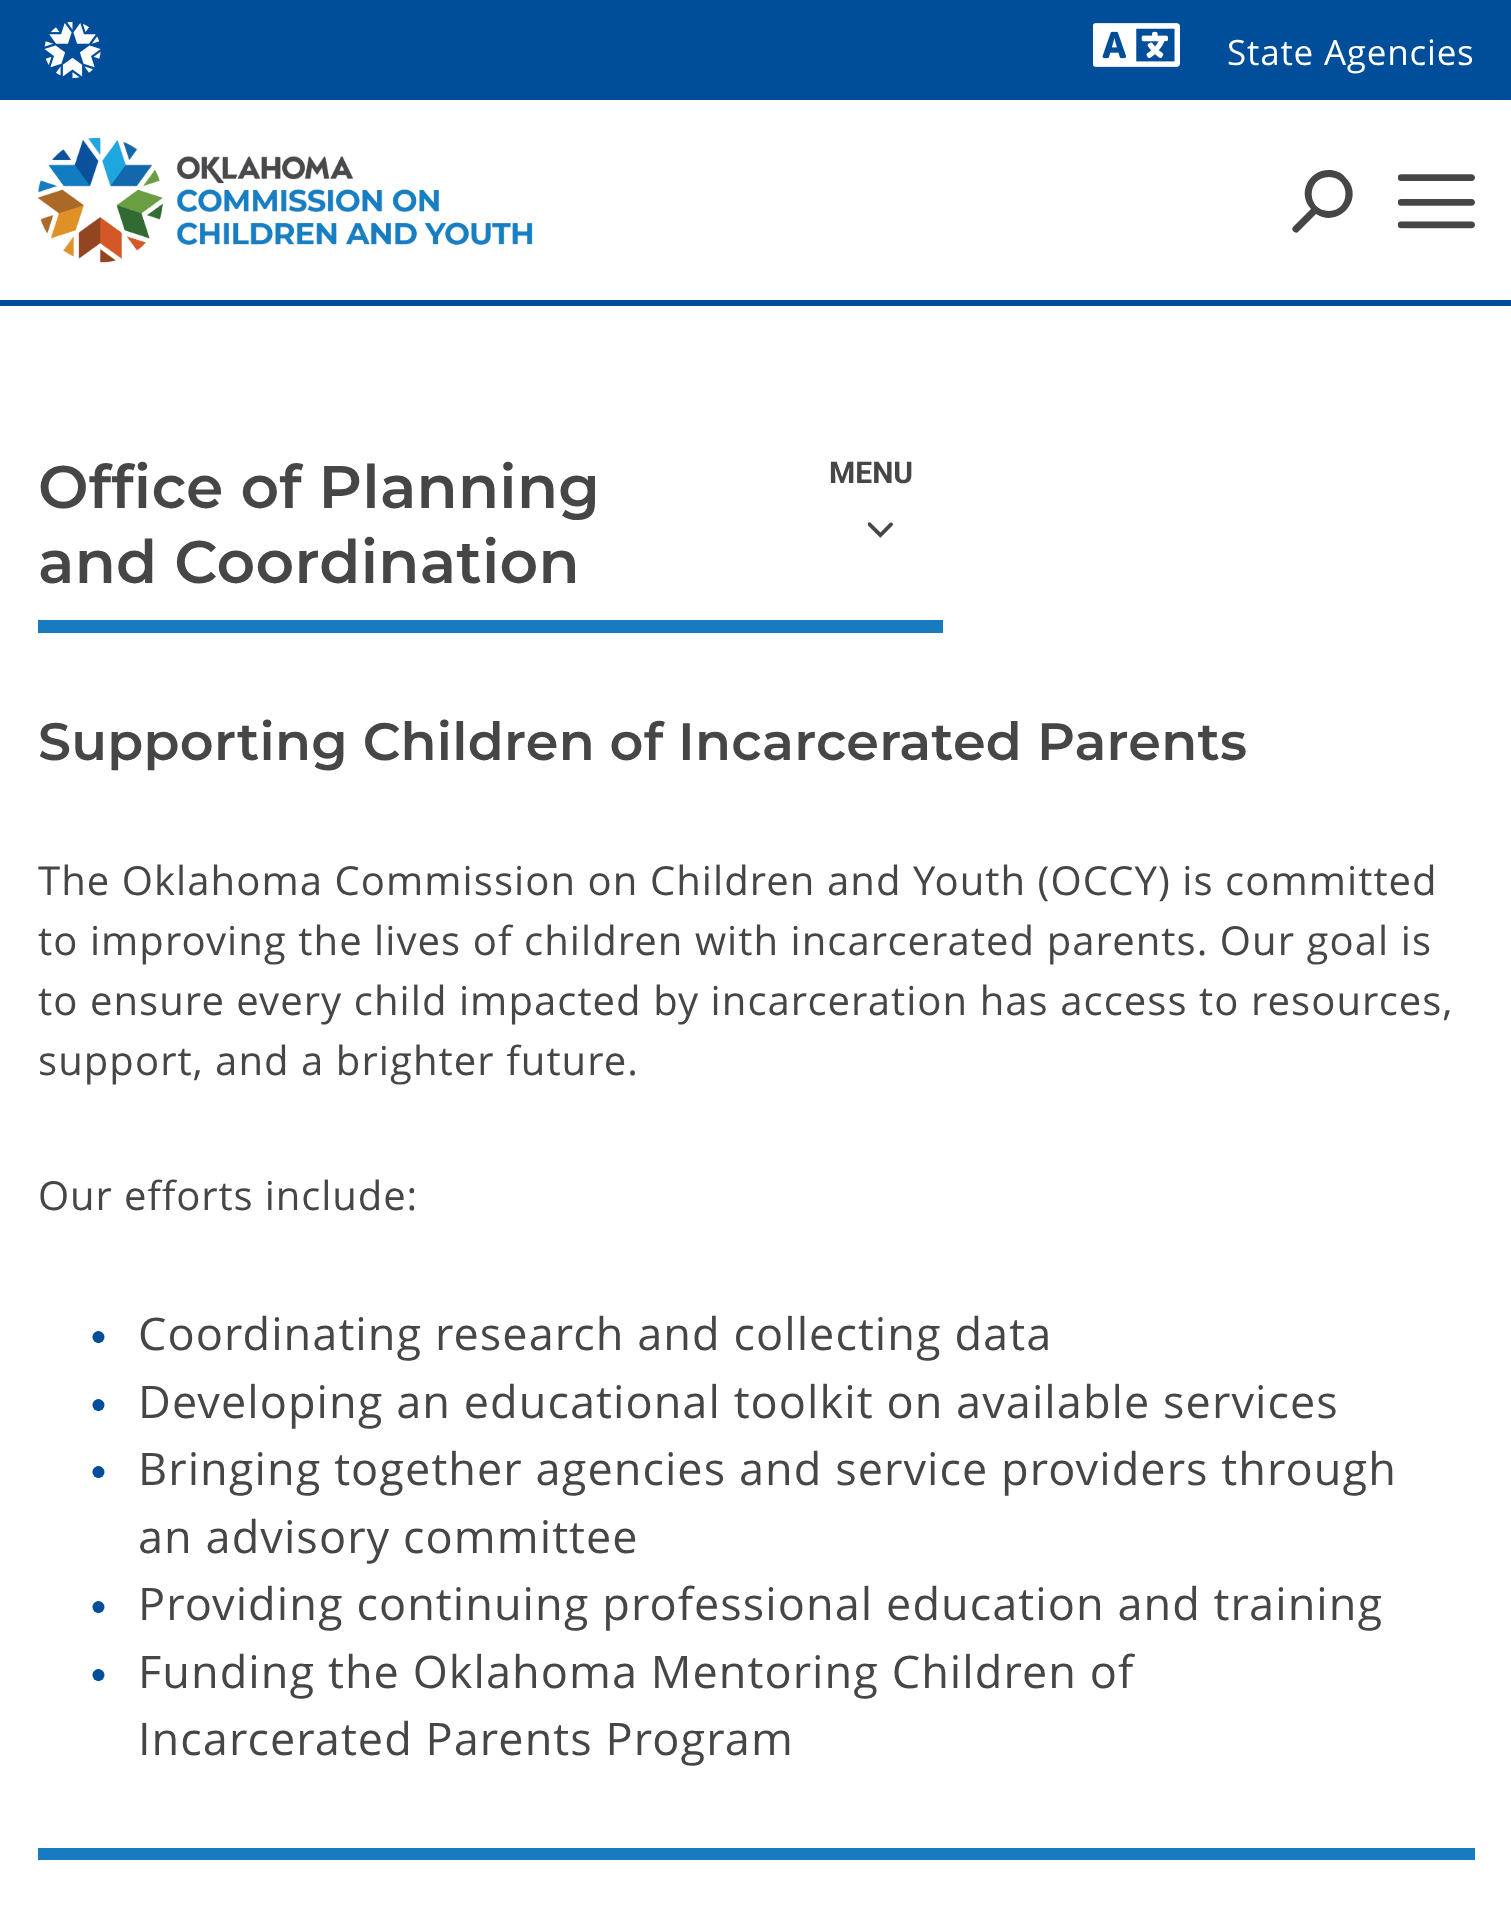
<svg xmlns="http://www.w3.org/2000/svg" width="1511" height="1908" viewBox="0 0 1511 1908">
  <rect width="100%" height="100%" fill="#fff"/>
  <path d="M0 0h1511v100H0z" fill="#004e9a"/>
  <image x="44" y="21" width="57" height="58" href="img/1.png"/>
  <image x="1093" y="23" width="87" height="44" href="img/2.png"/>
  <path d="M0 300h1511v6H0z" fill="#004e9a"/>
  <image x="38" y="138" width="495" height="125" href="img/3.png"/>
  <path d="M1329 170C1308 170 1297 194 1311 209L1293 227C1292 228 1292 230 1293 231C1295 233 1297 233 1298 232L1316 214C1340 229 1366 197 1345 177C1341 172 1335 170 1329 170ZM1329 211C1306 211 1306 177 1329 177C1351 177 1351 211 1329 211Z" fill="#464646"/>
  <image x="1398" y="174" width="77" height="55" href="img/4.png"/>
  <path d="M38 620h905v13H38z" fill="#187bc0"/>
  <image x="868" y="522" width="25" height="16" href="img/5.png"/>
  <path d="M38 1848h1437v12H38z" fill="#187bc0"/>
  <text x="1227" y="65" font-family="Open Sans" font-size="35" letter-spacing="0.8" fill="#fff">State Agencies</text>
  <g font-family="Montserrat" font-size="60" font-weight="600" letter-spacing="0.25" fill="#464646">
    <text x="38" y="508">Office of Planning</text>
    <text x="38" y="583">and Coordination</text>
  </g>
  <text x="829" y="483" font-family="Roboto" font-size="30" font-weight="bold" fill="#464646">MENU</text>
  <text x="38" y="760" font-family="Montserrat" font-size="52.5" font-weight="600" letter-spacing="0.25" fill="#464646">Supporting Children of Incarcerated Parents</text>
  <g font-family="Open Sans" font-size="40" letter-spacing="1.07" fill="#464646">
    <text x="38" y="895">The Oklahoma Commission on Children and Youth (OCCY) is committed</text>
    <text x="38" y="955">to improving the lives of children with incarcerated parents. Our goal is</text>
    <text x="38" y="1015">to ensure every child impacted by incarceration has access to resources,</text>
    <text x="38" y="1075">support, and a brighter future.</text>
  </g>
  <text x="38" y="1210" font-family="Open Sans" font-size="40" letter-spacing="0.9" fill="#464646">Our efforts include:</text>
  <text x="90" y="1345" font-family="Liberation Serif" font-size="28" letter-spacing="0.9" fill="#004e9a">●</text>
  <text x="138" y="1350" font-family="Open Sans" font-size="45" letter-spacing="1.07" fill="#464646">Coordinating research and collecting data</text>
  <text x="90" y="1413" font-family="Liberation Serif" font-size="28" letter-spacing="0.9" fill="#004e9a">●</text>
  <text x="138" y="1418" font-family="Open Sans" font-size="45" letter-spacing="1.07" fill="#464646">Developing an educational toolkit on available services</text>
  <text x="90" y="1480" font-family="Liberation Serif" font-size="28" letter-spacing="0.9" fill="#004e9a">●</text>
  <g font-family="Open Sans" font-size="45" letter-spacing="1.07" fill="#464646">
    <text x="138" y="1485">Bringing together agencies and service providers through</text>
    <text x="138" y="1553">an advisory committee</text>
  </g>
  <text x="90" y="1615" font-family="Liberation Serif" font-size="28" letter-spacing="0.9" fill="#004e9a">●</text>
  <text x="138" y="1620" font-family="Open Sans" font-size="45" letter-spacing="1.07" fill="#464646">Providing continuing professional education and training</text>
  <text x="90" y="1683" font-family="Liberation Serif" font-size="28" letter-spacing="0.9" fill="#004e9a">●</text>
  <g font-family="Open Sans" font-size="45" letter-spacing="1.07" fill="#464646">
    <text x="138" y="1688">Funding the Oklahoma Mentoring Children of</text>
    <text x="138" y="1755">Incarcerated Parents Program</text>
  </g>
</svg>
